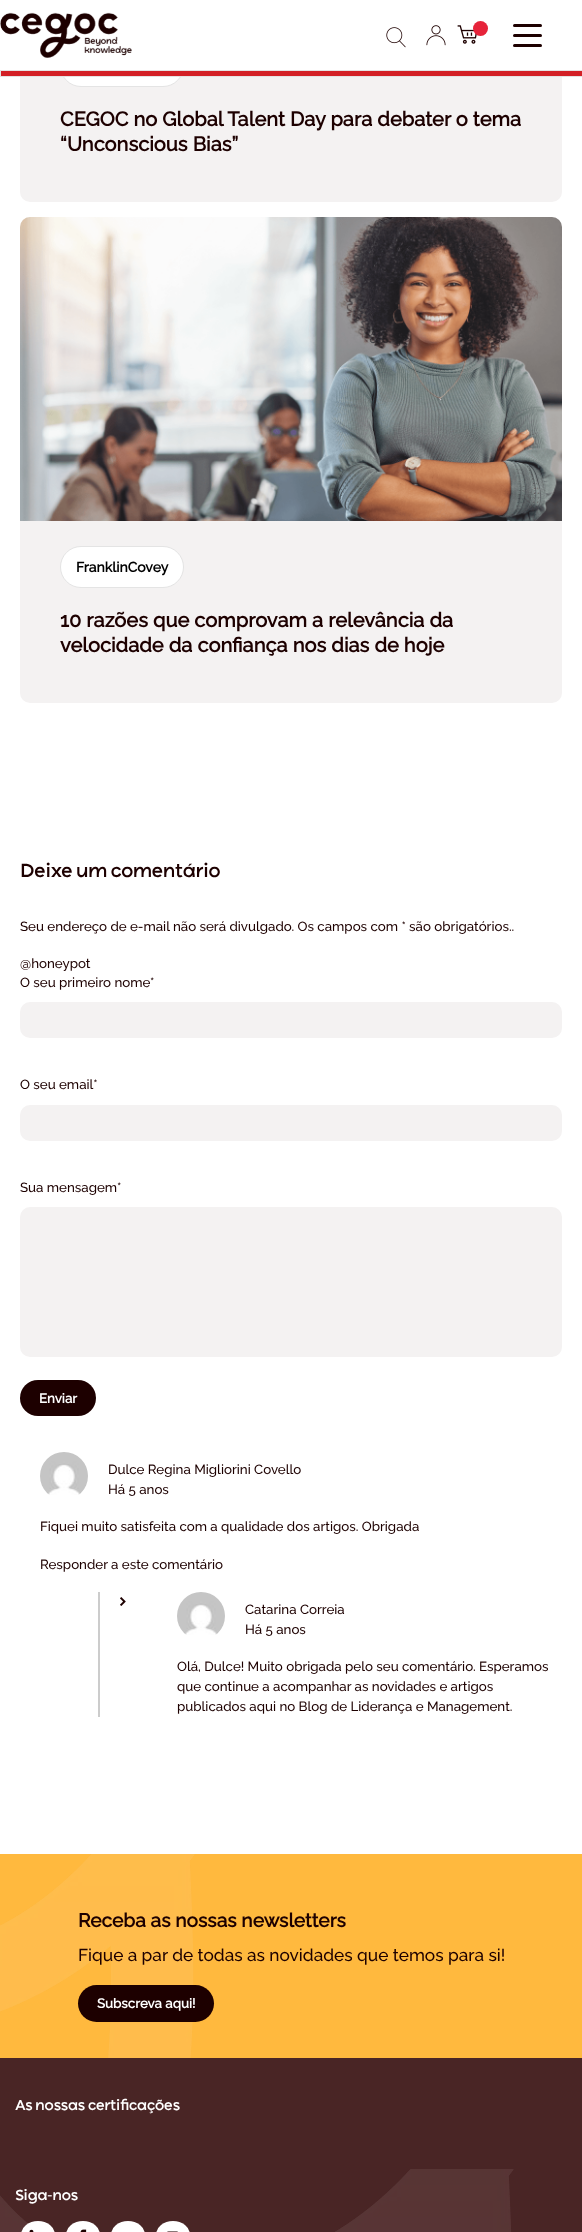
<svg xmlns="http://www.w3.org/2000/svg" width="582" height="2232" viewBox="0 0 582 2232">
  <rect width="100%" height="100%" fill="#fff"/>
  <rect x="20" y="-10" width="542" height="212" rx="10" fill="#f4f2f2"/>
  <rect x="60.5" y="45.5" width="123" height="41" rx="20.5" fill="#fff" stroke="#e4e4e4"/>
  <path d="M20 0h542v70H20z" fill="#fff"/>
  <image x="0" y="12" width="132" height="46" href="img/1.png"/>
  <image x="386" y="27" width="20" height="21" href="img/2.png"/>
  <image x="426" y="25" width="20" height="21" href="img/3.png"/>
  <image x="457" y="25" width="20" height="19" href="img/4.png"/>
  <circle cx="480.5" cy="28.5" r="7.5" fill="#e6233a"/>
  <rect x="513" y="24" width="29" height="3" rx="1.5" fill="#1d0000"/>
  <rect x="513" y="34" width="29" height="3" rx="1.5" fill="#1d0000"/>
  <rect x="513" y="44" width="29" height="3" rx="1.5" fill="#1d0000"/>
  <path d="M0.5 70.5h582v6H0.5z" fill="#d32026" stroke="#e4e4e4"/>
  <rect x="20" y="217" width="542" height="486" rx="10" fill="#f4f2f2"/>
  <image x="20" y="217" width="542" height="304" href="img/5.png"/>
  <rect x="60.5" y="546.5" width="123" height="41" rx="20.5" fill="#fff" stroke="#e4e4e4"/>
  <rect x="20" y="1002" width="542" height="36" rx="10" fill="#f4f2f2"/>
  <rect x="20" y="1105" width="542" height="36" rx="10" fill="#f4f2f2"/>
  <rect x="20" y="1207" width="542" height="150" rx="10" fill="#f4f2f2"/>
  <rect x="20" y="1380" width="76" height="36" rx="18" fill="#1d0000"/>
  <image x="40" y="1452" width="48" height="43" href="img/6.png"/>
  <path d="M98 1592h2v125H98z" fill="#ccc"/>
  <image x="120" y="1597" width="6" height="9" href="img/7.png"/>
  <image x="177" y="1592" width="48" height="43" href="img/8.png"/>
  <path d="M0 1854h582v204H0z" fill="#ffb93e"/>
  <image x="0" y="1854" width="195" height="204" href="img/9.png"/>
  <rect x="78" y="1985" width="136" height="37" rx="18.5" fill="#1d0000"/>
  <path d="M0 2058h582v174H0z" fill="#492525"/>
  <image x="0" y="2169" width="514" height="63" href="img/10.png"/>
  <rect x="21" y="2221" width="34" height="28" rx="17" fill="#fff"/>
  <image x="29" y="2229" width="5" height="3" href="img/11.png"/>
  <rect x="66" y="2221" width="34" height="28" rx="17" fill="#fff"/>
  <image x="80" y="2229" width="7" height="3" href="img/12.png"/>
  <rect x="111" y="2221" width="34" height="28" rx="17" fill="#fff"/>
  <rect x="156" y="2221" width="34" height="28" rx="17" fill="#fff"/>
  <image x="167" y="2231" width="11" height="1" href="img/13.png"/>
  <g font-family="Raleway" font-size="20" font-weight="bold" fill="#1d0000">
    <text x="60" y="126">CEGOC no Global Talent Day para debater o tema</text>
    <text x="60" y="151">“Unconscious Bias”</text>
  </g>
  <text x="76" y="572" font-family="Raleway" font-size="14" font-weight="bold" fill="#000">FranklinCovey</text>
  <g font-family="Raleway" font-size="20" font-weight="bold" fill="#1d0000">
    <text x="60" y="627">10 razões que comprovam a relevância da</text>
    <text x="60" y="652">velocidade da confiança nos dias de hoje</text>
  </g>
  <text x="20" y="877" font-family="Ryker" font-size="19.1" font-weight="500" fill="#1d0000">Deixe um comentário</text>
  <g font-family="Raleway" font-size="13.3" font-weight="500" fill="#1d0000">
    <text x="20" y="931">Seu endereço de e-mail não será divulgado. Os campos com * são obrigatórios..</text>
    <text x="20" y="968">@honeypot</text>
    <text x="20" y="987">O seu primeiro nome*</text>
    <text x="20" y="1089">O seu email*</text>
    <text x="20" y="1192">Sua mensagem*</text>
  </g>
  <text x="39" y="1403" font-family="Raleway" font-size="13.3" font-weight="bold" fill="#fff">Enviar</text>
  <g font-family="Raleway" font-size="13.3" font-weight="500" fill="#1d0000">
    <text x="108" y="1474">Dulce Regina Migliorini Covello</text>
    <text x="108" y="1494">Há 5 anos</text>
    <text x="40" y="1531">Fiquei muito satisfeita com a qualidade dos artigos. Obrigada</text>
    <text x="40" y="1569">Responder a este comentário</text>
    <text x="245" y="1614">Catarina Correia</text>
    <text x="245" y="1634">Há 5 anos</text>
    <text x="177" y="1671">Olá, Dulce! Muito obrigada pelo seu comentário. Esperamos</text>
    <text x="177" y="1691">que continue a acompanhar as novidades e artigos</text>
    <text x="177" y="1711">publicados aqui no Blog de Liderança e Management.</text>
  </g>
  <text x="78" y="1927" font-family="Raleway" font-size="19.1" font-weight="bold" fill="#1d0000">Receba as nossas newsletters</text>
  <text x="78" y="1961" font-family="Raleway" font-size="17.25" font-weight="500" fill="#1d0000">Fique a par de todas as novidades que temos para si!</text>
  <text x="97" y="2008" font-family="Raleway" font-size="13.3" font-weight="bold" fill="#fff">Subscreva aqui!</text>
  <g font-family="Ryker" font-size="14.6" font-weight="500" fill="#fff">
    <text x="15" y="2110">As nossas certificações</text>
    <text x="15" y="2200">Siga-nos</text>
  </g>
</svg>
